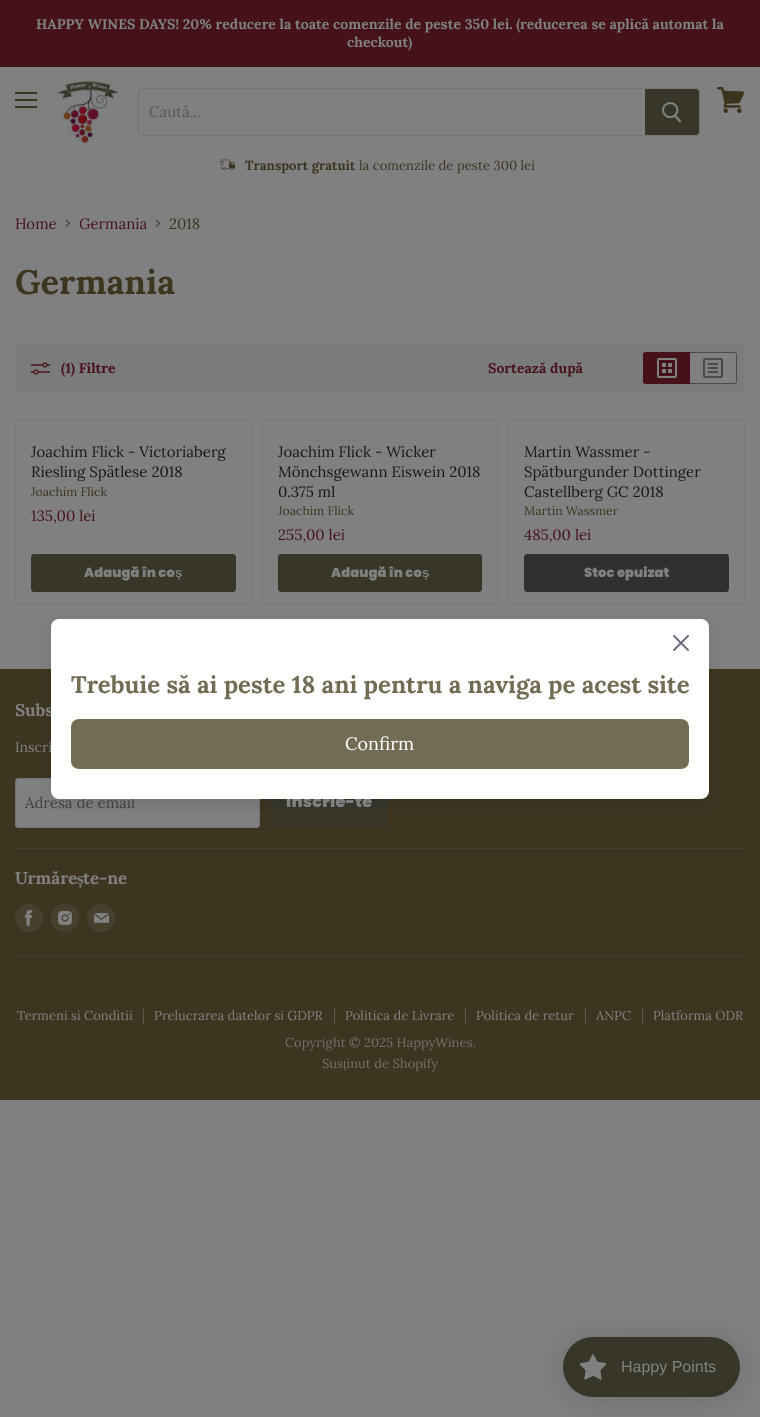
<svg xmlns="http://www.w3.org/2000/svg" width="760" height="1417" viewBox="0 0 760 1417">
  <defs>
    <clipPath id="clip1"><path d="M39 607h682v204H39z"/></clipPath>
  </defs>
  <rect width="100%" height="100%" fill="#808080"/>
  <path d="M0 0h760v67H0z" fill="#461219"/>
  <path d="M15 92h22v2H15z" fill="#3d3520"/>
  <path d="M15 99h22v2H15z" fill="#3d3520"/>
  <path d="M15 106h22v2H15z" fill="#3d3520"/>
  <image x="717" y="87" width="28" height="26" href="img/1.png"/>
  <image x="57" y="77" width="62" height="70" href="img/2.png"/>
  <rect x="138.5" y="88.5" width="561" height="47" rx="3.5" fill="none" stroke="#40404033"/>
  <path d="M142 89H645V135H142C140.5 135 139 133.5 139 132V92C139 90.5 140.5 89 142 89Z" fill="#808080"/>
  <path d="M645.5 89.5H696C697.5 89.5 698.5 90.5 698.5 92V132C698.5 133.5 697.5 134.5 696 134.5H645.5Z" fill="#373629" stroke="#373629"/>
  <image x="662" y="102" width="20" height="21" href="img/3.png"/>
  <image x="219" y="159" width="16" height="12" href="img/4.png"/>
  <image x="65" y="219" width="5" height="8" href="img/5.png"/>
  <image x="155" y="219" width="5" height="8" href="img/6.png"/>
  <path d="M15 344h730v48H15z" fill="#7b7b7b"/>
  <image x="31" y="362" width="19" height="13" href="img/7.png"/>
  <path d="M646 352H690V384H646C644.5 384 643 382.5 643 381V355C643 353.5 644.5 352 646 352Z" fill="#461219"/>
  <path d="M646 352H690V384H646C644 384 643 383 643 381V355C643 353 644 352 646 352ZM646 353H690V383H646C645 383 644 382 644 381V355C644 354 645 353 646 353Z" fill="#461219" fill-rule="evenodd"/>
  <image x="657" y="358" width="20" height="20" href="img/8.png"/>
  <path d="M690 352H734C735.5 352 737 353.5 737 355V381C737 382.5 735.5 384 734 384H690Z" fill="#808080"/>
  <path d="M690 352H734C736 352 737 353 737 355V381C737 383 736 384 734 384H690ZM690 353H734C735 353 736 354 736 355V381C736 382 735 383 734 383H690Z" fill="#4a4a4a" fill-rule="evenodd"/>
  <image x="703" y="358" width="20" height="20" href="img/9.png"/>
  <path d="M15.5 420.5h236v183H15.5z" fill="none" stroke="#767676"/>
  <rect x="31.5" y="554.5" width="204" height="37" rx="2.5" fill="#373629" stroke="#373629"/>
  <path d="M262.5 420.5h235v183H262.5z" fill="none" stroke="#767676"/>
  <rect x="278.5" y="554.5" width="203" height="37" rx="2.5" fill="#373629" stroke="#373629"/>
  <path d="M508.5 420.5h236v183H508.5z" fill="none" stroke="#767676"/>
  <rect x="524.5" y="554.5" width="204" height="37" rx="2.5" fill="#303030" stroke="#303030"/>
  <path d="M0 669h760v431H0z" fill="#3d3520"/>
  <rect x="15.5" y="778.5" width="244" height="49" rx="2.5" fill="#808080" stroke="#737373"/>
  <rect x="270" y="778" width="117" height="49" rx="3" fill="#373629"/>
  <g clip-path="url(#clip1)">
    <rect x="51" y="627" width="658" height="180" rx="8" fill="#1211271a" filter="blur(10px)"/>
  </g>
  <path d="M15 848h730v1H15z" fill="#47402e"/>
  <path d="M15 956h730v1H15z" fill="#47402e"/>
  <circle cx="29" cy="918" r="14" fill="#47402e"/>
  <image x="25" y="910" width="8" height="16" href="img/11.png"/>
  <circle cx="65" cy="918" r="14" fill="#47402e"/>
  <image x="58" y="911" width="14" height="14" href="img/12.png"/>
  <circle cx="101" cy="918" r="14" fill="#47402e"/>
  <image x="94" y="913" width="15" height="10" href="img/13.png"/>
  <path d="M143 1009h1v15H143z" fill="#5f5a50"/>
  <path d="M334 1009h1v15H334z" fill="#5f5a50"/>
  <path d="M465 1009h1v15H465z" fill="#5f5a50"/>
  <path d="M585 1009h1v15H585z" fill="#5f5a50"/>
  <path d="M642 1009h1v15H642z" fill="#5f5a50"/>
  <rect x="563" y="1339" width="177" height="60" rx="30" fill="#00000026" filter="blur(15px)"/>
  <rect x="563" y="1337" width="177" height="60" rx="30" fill="#373629"/>
  <image x="579" y="1354" width="28" height="26" href="img/14.png"/>
  <g font-family="Lora" font-size="14.05" font-weight="bold" fill="#808080">
    <text x="36" y="29">HAPPY WINES DAYS! 20% reducere la toate comenzile de peste 350 lei. (reducerea se aplică automat la</text>
    <text x="347" y="47">checkout)</text>
  </g>
  <text x="149" y="117" font-family="Lora" font-size="15" fill="#565656">Caută...</text>
  <text x="245" y="170" font-family="Lora" font-size="13.1" font-weight="bold" fill="#3d3520">Transport gratuit</text>
  <text x="359" y="170" font-family="Lora" font-size="13.1" fill="#3d3520">la comenzile de peste 300 lei</text>
  <g font-family="Lora" font-size="15" fill="#461219">
    <text x="15" y="229">Home</text>
    <text x="79" y="229">Germania</text>
  </g>
  <text x="169" y="229" font-family="Lora" font-size="15" fill="#3d3520">2018</text>
  <text x="15" y="294" font-family="Lora" font-size="34" font-weight="bold" fill="#3d3520">Germania</text>
  <g font-family="Lora" font-size="14.05" font-weight="bold" fill="#461219">
    <text x="61" y="373">(1) Filtre</text>
    <text x="488" y="373">Sortează după</text>
  </g>
  <g font-family="Lora" font-size="15" fill="#171717">
    <text x="31" y="457">Joachim Flick - Victoriaberg</text>
    <text x="31" y="477">Riesling Spätlese 2018</text>
  </g>
  <text x="31" y="496" font-family="Lora" font-size="12.25" fill="#3d3520">Joachim Flick</text>
  <text x="31" y="521" font-family="Lora" font-size="15" fill="#461219">135,00 lei</text>
  <text x="84" y="577" font-family="Poppins" font-size="13.1" font-weight="900" letter-spacing="0.1" fill="#808080">Adaugă în co</text>
  <text x="175" y="577" font-family="Liberation Sans" font-size="13.1" font-weight="bold" letter-spacing="0.1" fill="#808080">ș</text>
  <g font-family="Lora" font-size="15" fill="#171717">
    <text x="278" y="457">Joachim Flick - Wicker</text>
    <text x="278" y="477">Mönchsgewann Eiswein 2018</text>
    <text x="278" y="497">0.375 ml</text>
  </g>
  <text x="278" y="515" font-family="Lora" font-size="12.25" fill="#3d3520">Joachim Flick</text>
  <text x="278" y="540" font-family="Lora" font-size="15" fill="#461219">255,00 lei</text>
  <text x="331" y="577" font-family="Poppins" font-size="13.1" font-weight="900" letter-spacing="0.1" fill="#808080">Adaugă în co</text>
  <text x="422" y="577" font-family="Liberation Sans" font-size="13.1" font-weight="bold" letter-spacing="0.1" fill="#808080">ș</text>
  <g font-family="Lora" font-size="15" fill="#171717">
    <text x="524" y="457">Martin Wassmer -</text>
    <text x="524" y="477">Spätburgunder Dottinger</text>
    <text x="524" y="497">Castellberg GC 2018</text>
  </g>
  <text x="524" y="515" font-family="Lora" font-size="12.25" fill="#3d3520">Martin Wassmer</text>
  <text x="524" y="540" font-family="Lora" font-size="15" fill="#461219">485,00 lei</text>
  <text x="584" y="577" font-family="Poppins" font-size="13.1" font-weight="900" letter-spacing="0.1" fill="#808080">Stoc epuizat</text>
  <text x="15" y="716" font-family="Lora" font-size="17" font-weight="bold" fill="#808080">Subs</text>
  <text x="15" y="752" font-family="Lora" font-size="14.05" fill="#808080">Inscri</text>
  <text x="25" y="808" font-family="Lora" font-size="15" fill="#414141">Adresa de email</text>
  <text x="286" y="807" font-family="Poppins" font-size="16" font-weight="900" letter-spacing="0.25" fill="#808080">Înscrie-te</text>
  <rect x="51" y="619" width="658" height="180" rx="8" fill="#fff"/>
  <image x="673" y="635" width="16" height="16" href="img/10.png"/>
  <rect x="71" y="719" width="618" height="50" rx="8" fill="#726c54"/>
  <text x="345" y="750" font-family="Lora" font-size="18" fill="#fff">Confirm</text>
  <text x="71" y="693" font-family="Lora" font-size="24" font-weight="bold" fill="#726c54">Trebuie să ai peste 18 ani pentru a naviga pe acest site</text>
  <text x="15" y="884" font-family="Lora" font-size="17" font-weight="bold" fill="#808080">Urmăre</text>
  <text x="77" y="884" font-family="Liberation Serif" font-size="17" font-weight="bold" fill="#808080">ș</text>
  <text x="83" y="884" font-family="Lora" font-size="17" font-weight="bold" fill="#808080">te-ne</text>
  <g font-family="Lora" font-size="13" fill="#808080">
    <text x="17" y="1020">Termeni si Conditii</text>
    <text x="154" y="1020">Prelucrarea datelor si GDPR</text>
    <text x="345" y="1020">Politica de Livrare</text>
    <text x="476" y="1020">Politica de retur</text>
    <text x="596" y="1020">ANPC</text>
    <text x="653" y="1020">Platforma ODR</text>
  </g>
  <g font-family="Lora" font-size="13" fill="#72716d">
    <text x="285" y="1047">Copyright © 2025 HappyWines.</text>
    <text x="322" y="1068">Sus inut de Shopify</text>
  </g>
  <text x="343" y="1068" font-family="Liberation Serif" font-size="13" fill="#72716d">ț</text>
  <text x="621" y="1372" font-family="Liberation Sans" font-size="16" fill="#808080">Happy Points</text>
</svg>
